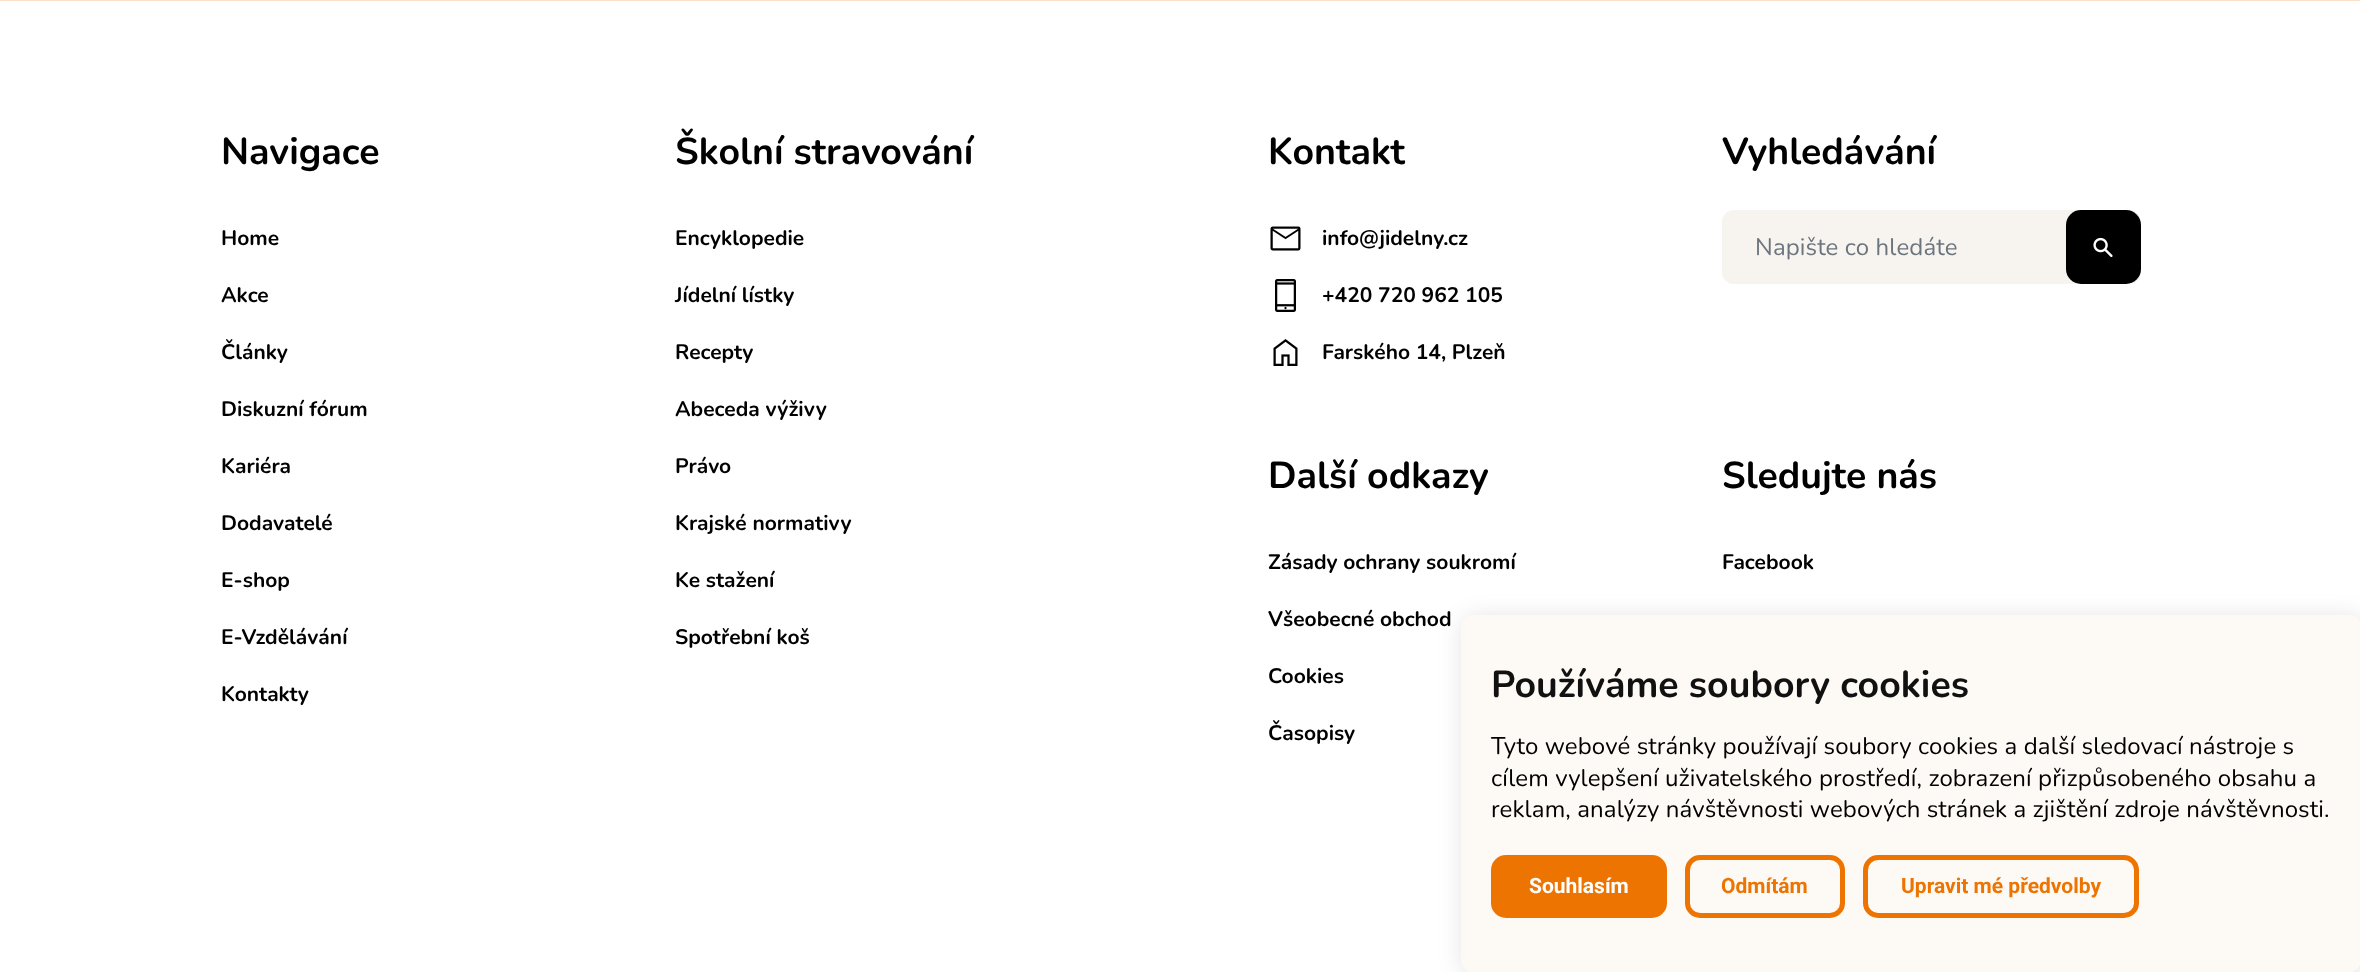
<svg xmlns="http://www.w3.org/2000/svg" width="2360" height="972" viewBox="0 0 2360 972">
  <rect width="100%" height="100%" fill="#fff"/>
  <path d="M0 0h2360v1H0z" fill="#fbe1c9"/>
  <image x="1270" y="226" width="31" height="25" href="img/1.png"/>
  <image x="1275" y="279" width="21" height="33" href="img/2.png"/>
  <image x="1273" y="339" width="25" height="27" href="img/3.png"/>
  <rect x="1723.5" y="211.5" width="416" height="71" rx="10.5" fill="#f7f4f0" stroke="#f7f4f0" stroke-width="3"/>
  <rect x="2066" y="210" width="75" height="74" rx="15" fill="#000"/>
  <image x="2093" y="237" width="20" height="21" href="img/4.png"/>
  <rect x="1463" y="618" width="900" height="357" rx="12" fill="#0000001f" filter="blur(12px)"/>
  <rect x="1461" y="615" width="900" height="357" rx="12" fill="#fdf9f5"/>
  <rect x="1491" y="855" width="176" height="63" rx="15" fill="#ee7402"/>
  <rect x="1687.5" y="857.5" width="155" height="58" rx="12.5" fill="none" stroke="#ee7402" stroke-width="5"/>
  <rect x="1865.5" y="857.5" width="271" height="58" rx="12.5" fill="none" stroke="#ee7402" stroke-width="5"/>
  <text x="221" y="164" font-family="Nunito" font-size="37.5" font-weight="bold" fill="#000">Navigace</text>
  <g font-family="Nunito" font-size="21" font-weight="bold" fill="#000">
    <text x="221" y="245">Home</text>
    <text x="221" y="302">Akce</text>
    <text x="221" y="359">Články</text>
    <text x="221" y="416">Diskuzní fórum</text>
    <text x="221" y="473">Kariéra</text>
    <text x="221" y="530">Dodavatelé</text>
    <text x="221" y="587">E-shop</text>
    <text x="221" y="644">E-Vzdělávání</text>
    <text x="221" y="701">Kontakty</text>
  </g>
  <text x="675" y="164" font-family="Nunito" font-size="37.5" font-weight="bold" fill="#000">Školní stravování</text>
  <g font-family="Nunito" font-size="21" font-weight="bold" fill="#000">
    <text x="675" y="245">Encyklopedie</text>
    <text x="675" y="302">Jídelní lístky</text>
    <text x="675" y="359">Recepty</text>
    <text x="675" y="416">Abeceda výživy</text>
    <text x="675" y="473">Právo</text>
    <text x="675" y="530">Krajské normativy</text>
    <text x="675" y="587">Ke stažení</text>
    <text x="675" y="644">Spotřební koš</text>
  </g>
  <text x="1268" y="164" font-family="Nunito" font-size="37.5" font-weight="bold" fill="#000">Kontakt</text>
  <g font-family="Nunito" font-size="21" font-weight="bold" fill="#000">
    <text x="1322" y="245">info@jidelny.cz</text>
    <text x="1322" y="302">+420 720 962 105</text>
    <text x="1322" y="359">Farského 14, Plzeň</text>
  </g>
  <text x="1722" y="164" font-family="Nunito" font-size="37.5" font-weight="bold" fill="#000">Vyhledávání</text>
  <text x="1755" y="255" font-family="Nunito" font-size="24" letter-spacing="0.12" fill="#6c757d">Napište co hledáte</text>
  <text x="1268" y="488" font-family="Nunito" font-size="37.5" font-weight="bold" fill="#000">Další odkazy</text>
  <g font-family="Nunito" font-size="21" font-weight="bold" fill="#000">
    <text x="1268" y="569">Zásady ochrany soukromí</text>
    <text x="1268" y="626">Všeobecné obchod</text>
    <text x="1268" y="683">Cookies</text>
    <text x="1268" y="740">Časopisy</text>
  </g>
  <text x="1722" y="488" font-family="Nunito" font-size="37.5" font-weight="bold" fill="#000">Sledujte nás</text>
  <text x="1722" y="569" font-family="Nunito" font-size="21" font-weight="bold" fill="#000">Facebook</text>
  <text x="1491" y="697" font-family="Nunito" font-size="37.5" font-weight="bold" fill="#111">Používáme soubory cookies</text>
  <g font-family="Nunito" font-size="24" letter-spacing="0.12" fill="#000">
    <text x="1491" y="754">Tyto webové stránky používají soubory cookies a další sledovací nástroje s</text>
    <text x="1491" y="786">cílem vylepšení uživatelského prostředí, zobrazení přizpůsobeného obsahu a</text>
    <text x="1491" y="817">reklam, analýzy návštěvnosti webových stránek a zjištění zdroje návštěvnosti.</text>
  </g>
  <text x="1529" y="893" font-family="Roboto" font-size="21" font-weight="bold" fill="#fff">Souhlasím</text>
  <g font-family="Roboto" font-size="21" font-weight="bold" fill="#ee7402">
    <text x="1721" y="893">Odmítám</text>
    <text x="1901" y="893">Upravit mé předvolby</text>
  </g>
</svg>
